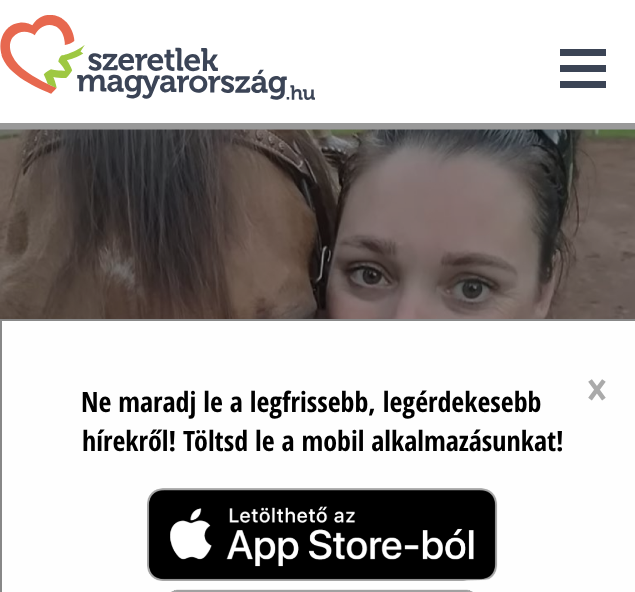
<svg xmlns="http://www.w3.org/2000/svg" width="635" height="592" viewBox="0 0 635 592">
  <rect width="100%" height="100%" fill="#999"/>
  <path d="M0 0h635v123H0z" fill="#fff"/>
  <image x="0" y="15" width="315" height="85" href="img/1.png"/>
  <path d="M560 49h46v7H560z" fill="#3b4455"/>
  <path d="M560 65h46v7H560z" fill="#3b4455"/>
  <path d="M560 81h46v7H560z" fill="#3b4455"/>
  <image x="0" y="129" width="635" height="190" href="img/2.png"/>
  <path d="M1 320h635v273H1z" fill="#fefefe" stroke="#888" stroke-width="2"/>
  <image x="147" y="488" width="351" height="93" href="img/3.png"/>
  <image x="171" y="589" width="302" height="3" href="img/4.png"/>
  <g font-family="Open Sans Condensed" font-size="28" font-weight="bold" fill="#000">
    <text x="81" y="412">Ne maradj le a legfrissebb, legérdekesebb</text>
    <text x="82" y="451">hírekről! Töltsd le a mobil alkalmazásunkat!</text>
  </g>
  <text x="586" y="407" font-family="Open Sans Condensed" font-size="49" font-weight="bold" fill="#aaa">×</text>
</svg>
